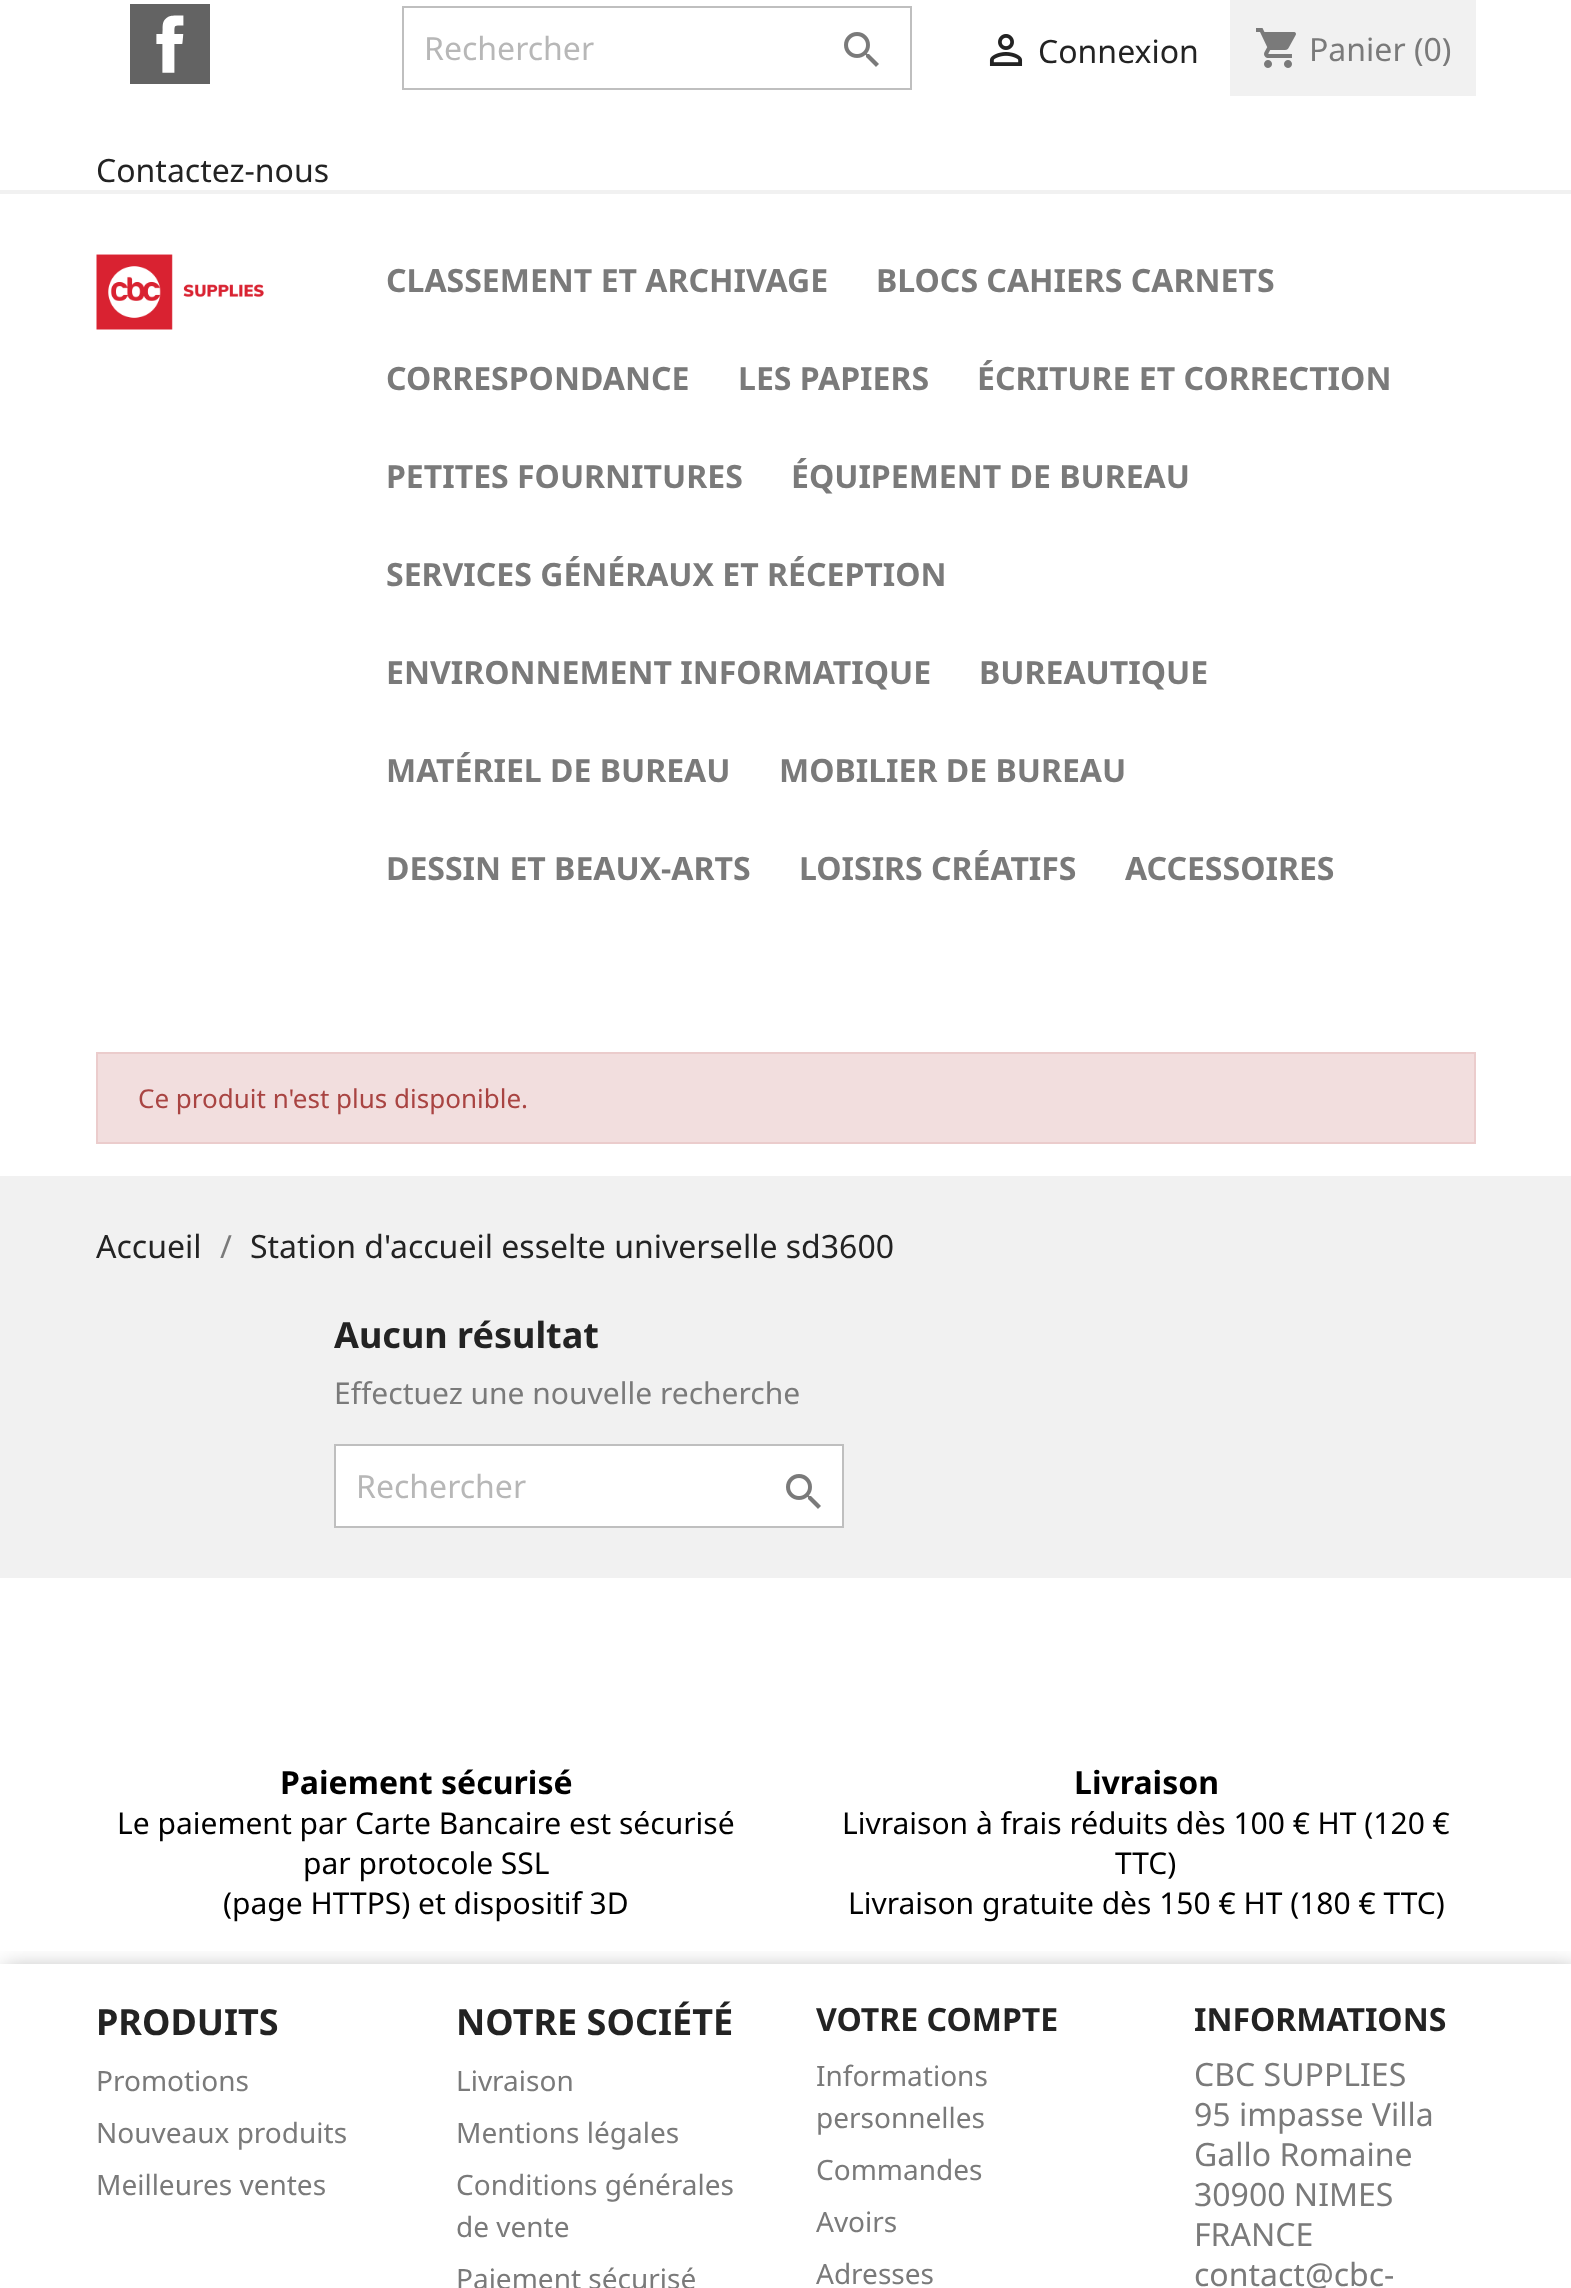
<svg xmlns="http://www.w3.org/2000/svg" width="1571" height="2288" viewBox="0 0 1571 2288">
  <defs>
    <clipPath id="clip1"><path d="M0 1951h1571v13H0z"/></clipPath>
  </defs>
  <rect width="100%" height="100%" fill="#fff"/>
  <path d="M0 190h1571v4H0z" fill="#f1f1f1"/>
  <path d="M403 7h508v82H403z" fill="none" stroke="#bfbfbf" stroke-width="2"/>
  <image x="844" y="32" width="35" height="35" href="img/1.png"/>
  <image x="989" y="34" width="34" height="32" href="img/2.png"/>
  <path d="M1230 0h246v96H1230z" fill="#f1f1f1"/>
  <image x="1256" y="28" width="40" height="40" href="img/3.png"/>
  <path d="M130 4h80v80H130z" fill="#636363"/>
  <image x="156" y="15" width="28" height="58" href="img/4.png"/>
  <image x="96" y="254" width="168" height="76" href="img/5.png"/>
  <path d="M97 1053h1378v90H97z" fill="#f2dede" stroke="#ebcccc" stroke-width="2"/>
  <path d="M0 1176h1571v402H0z" fill="#f1f1f1"/>
  <path d="M335 1445h508v82H335z" fill="#fff" stroke="#bfbfbf" stroke-width="2"/>
  <image x="786" y="1474" width="35" height="35" href="img/1.png"/>
  <g clip-path="url(#clip1)">
    <path d="M4 1968h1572v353H4z" fill="#0000004d" filter="blur(11px)"/>
  </g>
  <text x="424" y="60" font-family="Noto Sans" font-size="32" fill="#b7b7b7">Rechercher</text>
  <text x="1038" y="63" font-family="Noto Sans" font-size="32" fill="#232323">Connexion</text>
  <text x="1309" y="61" font-family="Noto Sans" font-size="32" fill="#7a7a7a">Panier (0)</text>
  <text x="96" y="182" font-family="Noto Sans" font-size="32" fill="#232323">Contactez-nous</text>
  <g font-family="Noto Sans" font-size="32" font-weight="bold" fill="#7a7a7a">
    <text x="386" y="292">CLASSEMENT ET ARCHIVAGE</text>
    <text x="876" y="292">BLOCS CAHIERS CARNETS</text>
    <text x="386" y="390">CORRESPONDANCE</text>
    <text x="738" y="390">LES PAPIERS</text>
    <text x="977" y="390">ÉCRITURE ET CORRECTION</text>
    <text x="386" y="488">PETITES FOURNITURES</text>
    <text x="791" y="488">ÉQUIPEMENT DE BUREAU</text>
    <text x="386" y="586">SERVICES GÉNÉRAUX ET RÉCEPTION</text>
    <text x="386" y="684">ENVIRONNEMENT INFORMATIQUE</text>
    <text x="979" y="684">BUREAUTIQUE</text>
    <text x="386" y="782">MATÉRIEL DE BUREAU</text>
    <text x="779" y="782">MOBILIER DE BUREAU</text>
    <text x="386" y="880">DESSIN ET BEAUX-ARTS</text>
    <text x="799" y="880">LOISIRS CRÉATIFS</text>
    <text x="1125" y="880">ACCESSOIRES</text>
  </g>
  <text x="138" y="1108" font-family="Noto Sans" font-size="26" fill="#a94442">Ce produit n'est plus disponible.</text>
  <text x="96" y="1258" font-family="Noto Sans" font-size="32" fill="#232323">Accueil</text>
  <text x="220" y="1258" font-family="Noto Sans" font-size="32" fill="#7a7a7a">/</text>
  <text x="250" y="1258" font-family="Noto Sans" font-size="32" fill="#232323">Station d'accueil esselte universelle sd3600</text>
  <text x="334" y="1348" font-family="Noto Sans" font-size="36" font-weight="bold" fill="#232323">Aucun résultat</text>
  <text x="334" y="1404" font-family="Noto Sans" font-size="30" fill="#7a7a7a">Effectuez une nouvelle recherche</text>
  <text x="356" y="1498" font-family="Noto Sans" font-size="32" fill="#b7b7b7">Rechercher</text>
  <text x="280" y="1794" font-family="Noto Sans" font-size="32" font-weight="bold" fill="#000">Paiement sécurisé</text>
  <g font-family="Noto Sans" font-size="30" fill="#000">
    <text x="117" y="1834">Le paiement par Carte Bancaire est sécurisé</text>
    <text x="303" y="1874">par protocole SSL</text>
    <text x="223" y="1914">(page HTTPS) et dispositif 3D</text>
  </g>
  <text x="1074" y="1794" font-family="Noto Sans" font-size="32" font-weight="bold" fill="#000">Livraison</text>
  <g font-family="Noto Sans" font-size="30" fill="#000">
    <text x="842" y="1834">Livraison à frais réduits dès 100 € HT (120 €</text>
    <text x="1115" y="1874">TTC)</text>
    <text x="848" y="1914">Livraison gratuite dès 150 € HT (180 € TTC)</text>
  </g>
  <text x="96" y="2035" font-family="Noto Sans" font-size="36" font-weight="bold" fill="#232323">PRODUITS</text>
  <g font-family="Noto Sans" font-size="28" fill="#7a7a7a">
    <text x="96" y="2091">Promotions</text>
    <text x="96" y="2143">Nouveaux produits</text>
    <text x="96" y="2195">Meilleures ventes</text>
  </g>
  <text x="456" y="2035" font-family="Noto Sans" font-size="36" font-weight="bold" fill="#232323">NOTRE SOCIÉTÉ</text>
  <g font-family="Noto Sans" font-size="28" fill="#7a7a7a">
    <text x="456" y="2091">Livraison</text>
    <text x="456" y="2143">Mentions légales</text>
    <text x="456" y="2195">Conditions générales</text>
    <text x="456" y="2237">de vente</text>
    <text x="456" y="2289">Paiement sécurisé</text>
  </g>
  <text x="816" y="2031" font-family="Noto Sans" font-size="32" font-weight="bold" fill="#232323">VOTRE COMPTE</text>
  <g font-family="Noto Sans" font-size="28" fill="#7a7a7a">
    <text x="816" y="2086">Informations</text>
    <text x="816" y="2128">personnelles</text>
    <text x="816" y="2180">Commandes</text>
    <text x="816" y="2232">Avoirs</text>
    <text x="816" y="2284">Adresses</text>
  </g>
  <text x="1194" y="2031" font-family="Noto Sans" font-size="32" font-weight="bold" fill="#232323">INFORMATIONS</text>
  <g font-family="Noto Sans" font-size="32" fill="#7a7a7a">
    <text x="1194" y="2086">CBC SUPPLIES</text>
    <text x="1194" y="2126">95 impasse Villa</text>
    <text x="1194" y="2166">Gallo Romaine</text>
    <text x="1194" y="2206">30900 NIMES</text>
    <text x="1194" y="2246">FRANCE</text>
    <text x="1194" y="2286">contact@cbc-</text>
  </g>
</svg>
